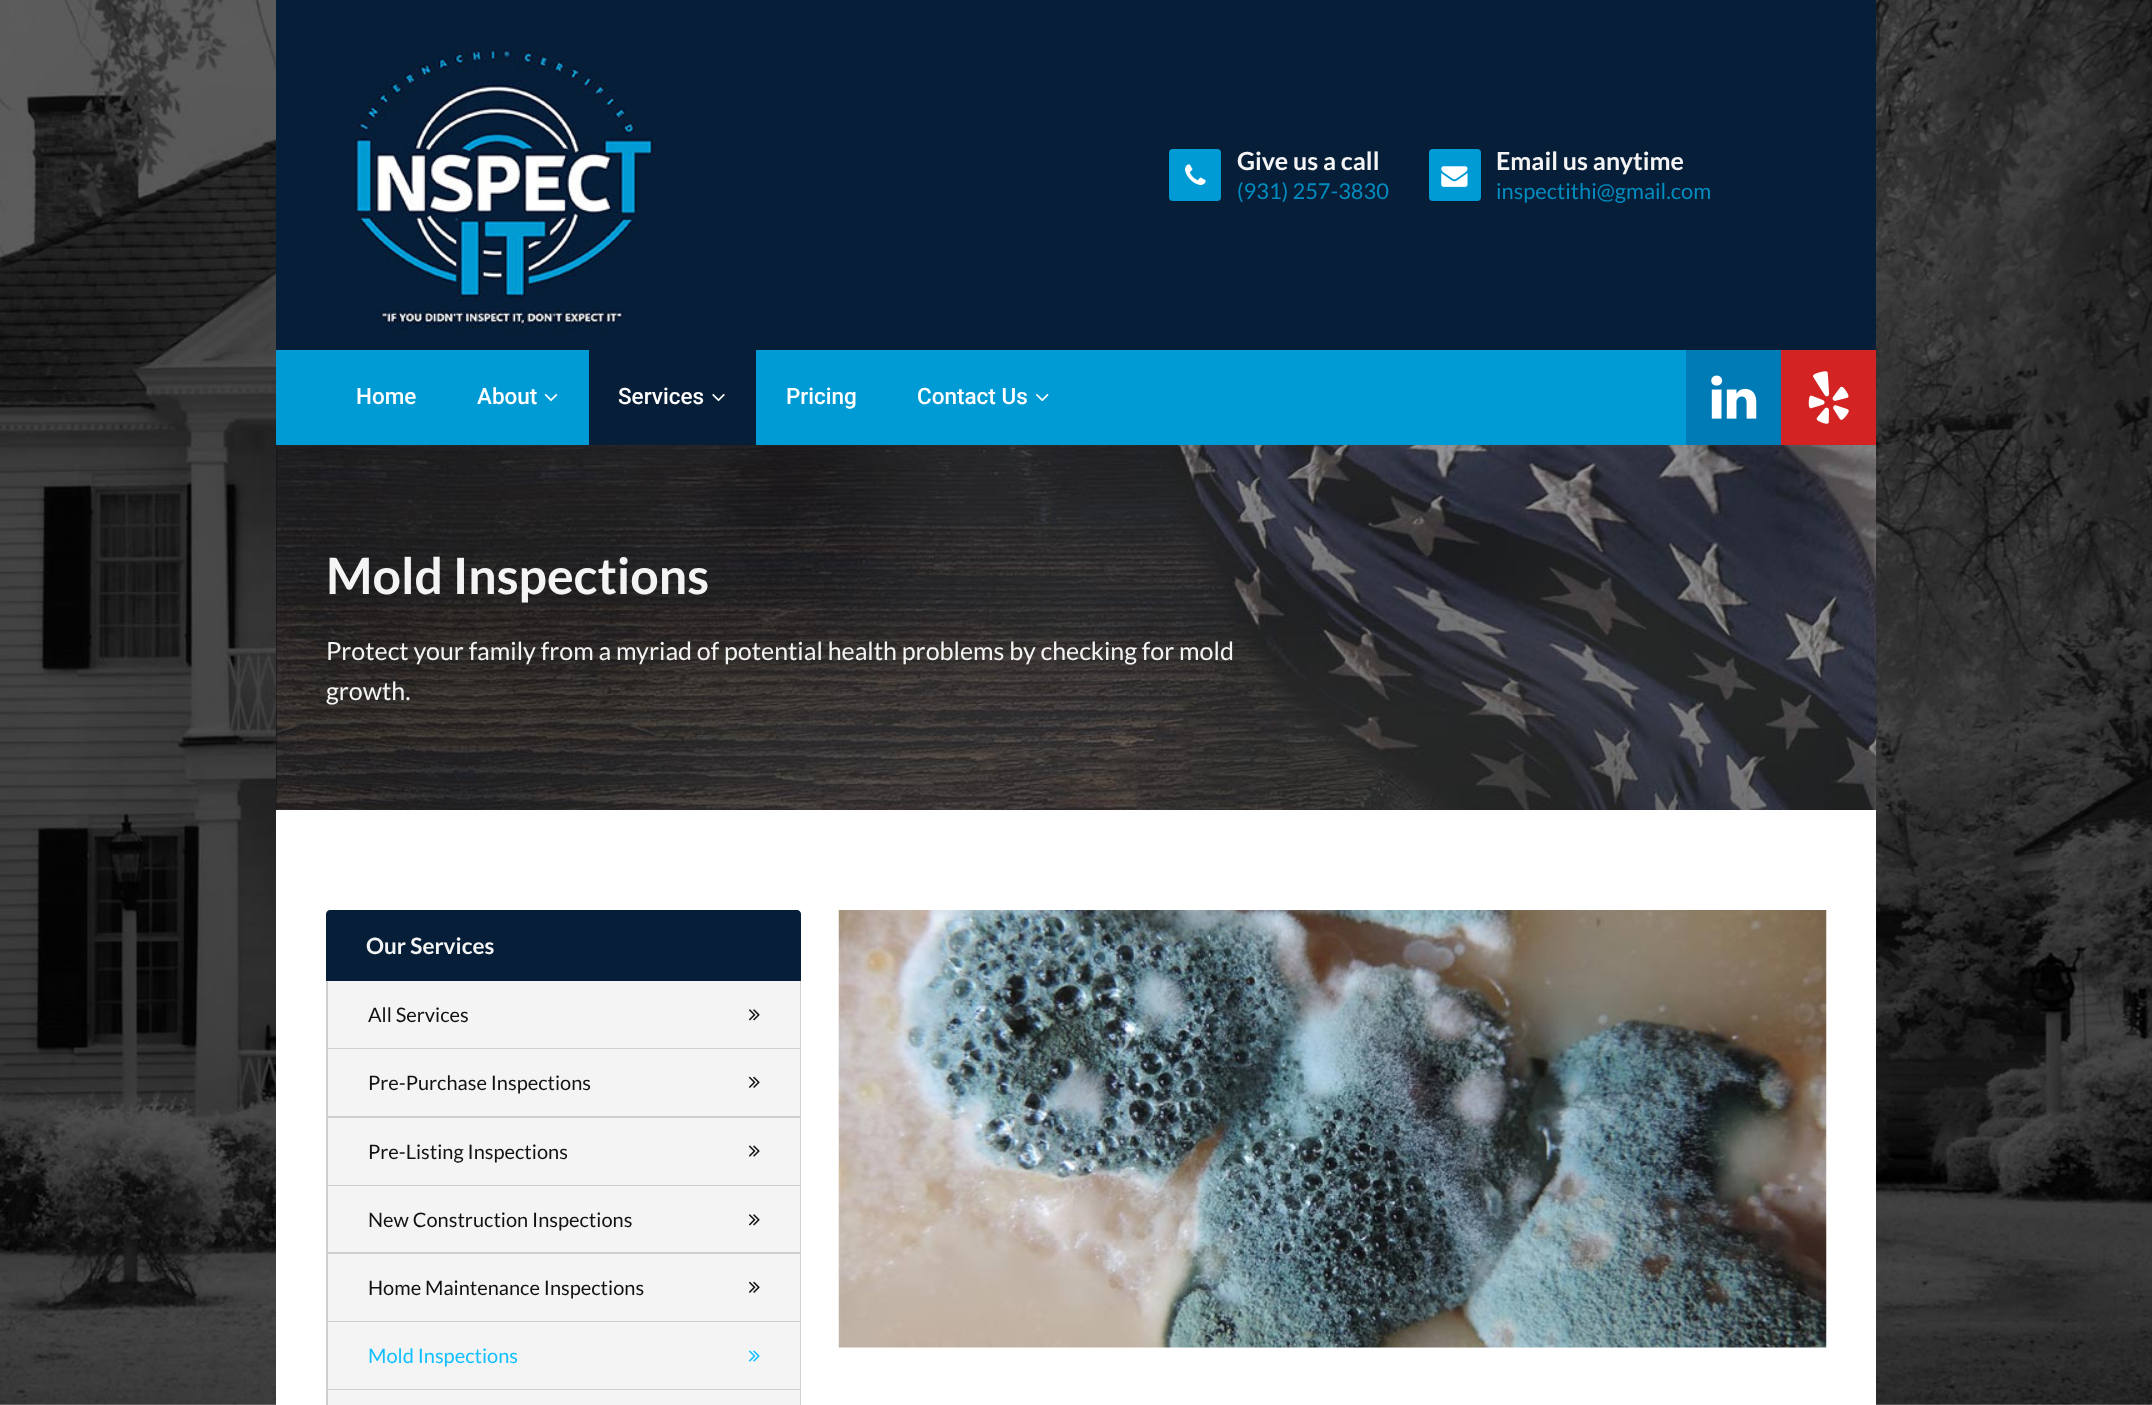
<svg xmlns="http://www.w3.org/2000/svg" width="2152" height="1405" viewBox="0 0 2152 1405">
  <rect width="100%" height="100%" fill="#fff"/>
  <image x="0" y="0" width="2152" height="1405" href="img/1.png"/>
  <path d="M276 0h1600v350H276z" fill="#061e38"/>
  <image x="355" y="50" width="302" height="280" href="img/2.png"/>
  <rect x="1169" y="149" width="52" height="52" rx="4" fill="#009bd4"/>
  <image x="1185" y="164" width="21" height="21" href="img/3.png"/>
  <rect x="1429" y="149" width="52" height="52" rx="4" fill="#009bd4"/>
  <image x="1441" y="166" width="27" height="21" href="img/4.png"/>
  <path d="M276 350h1410v95H276z" fill="#009bd4"/>
  <image x="544" y="394" width="14" height="8" href="img/5.png"/>
  <path d="M589 350h167v95H589z" fill="#061e38"/>
  <image x="712" y="394" width="13" height="8" href="img/6.png"/>
  <image x="1036" y="394" width="13" height="8" href="img/7.png"/>
  <path d="M1686 350h95v95H1686z" fill="#007bb5"/>
  <image x="1711" y="375" width="46" height="44" href="img/8.png"/>
  <path d="M1781 350h95v95H1781z" fill="#d32323"/>
  <image x="1808" y="371" width="41" height="53" href="img/9.png"/>
  <path d="M276 445h1v365H276z" fill="#0a1119"/>
  <image x="276" y="445" width="1601" height="365" href="img/10.png"/>
  <path d="M276 810h1600v595H276z" fill="#fff"/>
  <path d="M330 910H797C799 910 801 912 801 914V981H326V914C326 912 328 910 330 910Z" fill="#061e38"/>
  <path d="M326 981h475v409H326z" fill="#f4f4f4"/>
  <path d="M801 981V1049L800 1048V981Z" fill="#cfcfcf"/>
  <path d="M801 1049H326L328 1048H800Z" fill="#00000026"/>
  <path d="M326 1049V981H328V1048Z" fill="#00000026"/>
  <image x="748" y="1009" width="12" height="12" href="img/11.png"/>
  <path d="M801 1049V1118L800 1116V1049Z" fill="#cfcfcf"/>
  <path d="M801 1118H326L328 1116H800Z" fill="#00000026"/>
  <path d="M326 1118V1049H328V1116Z" fill="#00000026"/>
  <image x="748" y="1076" width="12" height="12" href="img/12.png"/>
  <path d="M801 1118V1186L800 1185V1118Z" fill="#cfcfcf"/>
  <path d="M801 1186H326L328 1185H800Z" fill="#00000026"/>
  <path d="M326 1186V1118H328V1185Z" fill="#00000026"/>
  <image x="748" y="1145" width="12" height="12" href="img/13.png"/>
  <path d="M801 1186V1254L800 1252V1186Z" fill="#cfcfcf"/>
  <path d="M801 1254H326L328 1252H800Z" fill="#00000026"/>
  <path d="M326 1254V1186H328V1252Z" fill="#00000026"/>
  <image x="748" y="1214" width="12" height="12" href="img/11.png"/>
  <path d="M801 1254V1322L800 1321V1254Z" fill="#cfcfcf"/>
  <path d="M801 1322H326L328 1321H800Z" fill="#00000026"/>
  <path d="M326 1322V1254H328V1321Z" fill="#00000026"/>
  <image x="748" y="1281" width="12" height="12" href="img/12.png"/>
  <path d="M801 1322V1390L800 1389V1322Z" fill="#cfcfcf"/>
  <path d="M801 1390H326L328 1389H800Z" fill="#00000026"/>
  <path d="M326 1390V1322H328V1389Z" fill="#00000026"/>
  <image x="748" y="1350" width="12" height="12" href="img/14.png"/>
  <path d="M328 1390h472v15H328z" fill="#f4f4f4"/>
  <path d="M801 1390V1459L800 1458V1390Z" fill="#cfcfcf"/>
  <path d="M326 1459V1390H328V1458Z" fill="#cfcfcf"/>
  <image x="838" y="910" width="989" height="438" href="img/15.png"/>
  <text x="1237" y="170" font-family="Lato" font-size="25" font-weight="bold" fill="#f4f4f4">Give us a call</text>
  <text x="1237" y="199" font-family="Lato" font-size="21.9" fill="#008cbf">(931) 257-3830</text>
  <text x="1496" y="170" font-family="Lato" font-size="25" font-weight="bold" fill="#f4f4f4">Email us anytime</text>
  <text x="1496" y="199" font-family="Lato" font-size="21.9" fill="#008cbf">inspectithi@gmail.com</text>
  <g font-family="Roboto" font-size="22.5" font-weight="500" fill="#fff">
    <text x="356" y="404">Home</text>
    <text x="477" y="404">About</text>
    <text x="618" y="404">Services</text>
    <text x="786" y="404">Pricing</text>
    <text x="917" y="404">Contact Us</text>
  </g>
  <text x="326" y="594" font-family="Lato" font-size="50" font-weight="bold" fill="#f4f4f4">Mold Inspections</text>
  <g font-family="Lato" font-size="25" fill="#f4f4f4">
    <text x="326" y="660">Protect your family from a myriad of potential health problems by checking for mold</text>
    <text x="326" y="700">growth.</text>
  </g>
  <text x="366" y="954" font-family="Lato" font-size="22.5" font-weight="bold" fill="#f4f4f4">Our Services</text>
  <g font-family="Lato" font-size="20" fill="#121212">
    <text x="368" y="1022">All Services</text>
    <text x="368" y="1090">Pre-Purchase Inspections</text>
    <text x="368" y="1159">Pre-Listing Inspections</text>
    <text x="368" y="1227">New Construction Inspections</text>
    <text x="368" y="1295">Home Maintenance Inspections</text>
  </g>
  <text x="368" y="1363" font-family="Lato" font-size="20" fill="#11bfff">Mold Inspections</text>
</svg>
